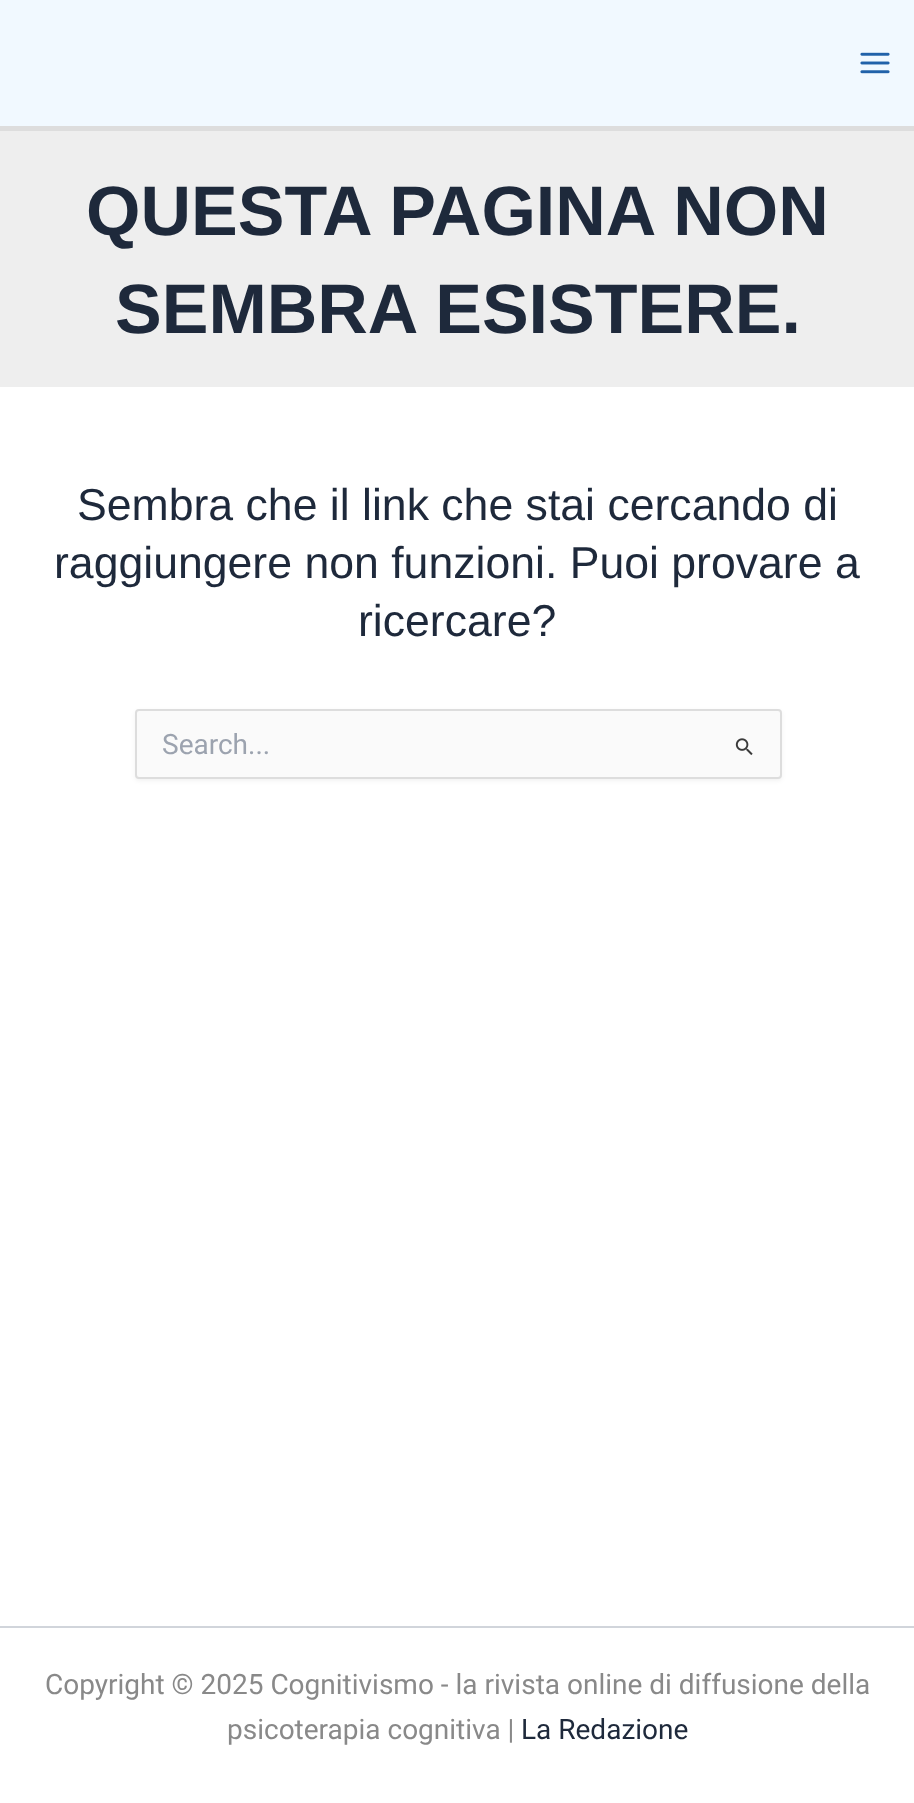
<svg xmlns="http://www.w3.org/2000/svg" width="914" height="1803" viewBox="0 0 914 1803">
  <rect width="100%" height="100%" fill="#fff"/>
  <path d="M0 0h914v126H0z" fill="#f1f9ff"/>
  <path d="M0 126h914v5H0z" fill="#ddd"/>
  <image x="860" y="52" width="30" height="22" href="img/1.png"/>
  <path d="M0 131h914v256H0z" fill="#eee"/>
  <rect x="135" y="711" width="647" height="70" rx="4" fill="#0000000d" filter="blur(2px)"/>
  <rect x="136" y="710" width="645" height="68" rx="3" fill="#fafafa" stroke="#ddd" stroke-width="2"/>
  <image x="735" y="738" width="18" height="18" href="img/2.png"/>
  <path d="M0 1626h914v2H0z" fill="#d1d5db"/>
  <g font-family="Liberation Sans" font-size="70" font-weight="bold" fill="#1e293b">
    <text x="86" y="235">QUESTA PAGINA NON</text>
    <text x="115" y="333">SEMBRA ESISTERE.</text>
  </g>
  <g font-family="Liberation Sans" font-size="44.6" fill="#1e293b">
    <text x="77" y="520">Sembra che il link che stai cercando di</text>
    <text x="54" y="578">raggiungere non funzioni. Puoi provare a</text>
    <text x="358" y="636">ricercare?</text>
  </g>
  <text x="162" y="754" font-family="Roboto" font-size="28" fill="#9ca3af">Search...</text>
  <g font-family="Roboto" font-size="28" fill="#898989">
    <text x="45" y="1694">Copyright © 2025 Cognitivismo - la rivista online di diffusione della</text>
    <text x="227" y="1739">psicoterapia cognitiva |</text>
  </g>
  <text x="521" y="1739" font-family="Roboto" font-size="28" fill="#1e293b">La Redazione</text>
</svg>
